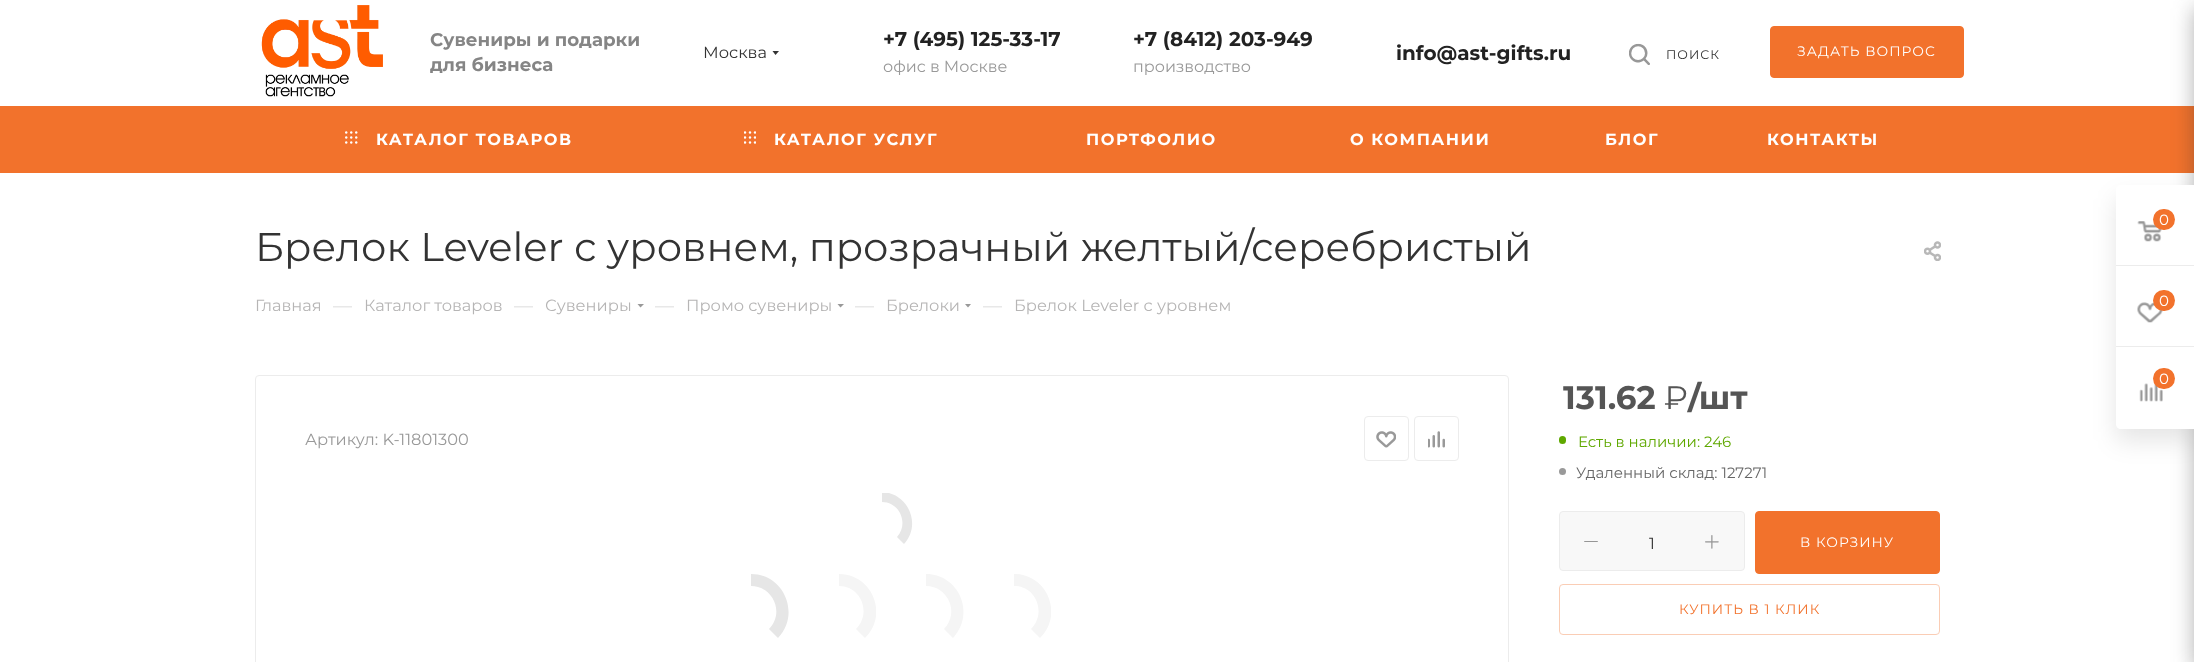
<svg xmlns="http://www.w3.org/2000/svg" width="2194" height="662" viewBox="0 0 2194 662">
  <defs>
    <clipPath id="clip1"><path d="M801 574h75v75H801z"/></clipPath>
    <clipPath id="clip2"><path d="M976 574h75v75H976z"/></clipPath>
  </defs>
  <rect width="100%" height="100%" fill="#fff"/>
  <image x="261" y="5" width="122" height="92" href="img/1.png"/>
  <path d="M772.5 51H779L775.5 55Z" fill="#333" fill-rule="evenodd"/>
  <image x="1629" y="43" width="21" height="22" href="img/2.png"/>
  <rect x="1770.5" y="26.5" width="193" height="51" rx="3.5" fill="#f2722c" stroke="#f2722c"/>
  <path d="M0 106h2194v67H0z" fill="#f2722c"/>
  <image x="345" y="131" width="13" height="13" href="img/3.png"/>
  <image x="744" y="131" width="12" height="13" href="img/4.png"/>
  <image x="1924" y="241" width="17" height="20" href="img/5.png"/>
  <path d="M637.5 304H644L640.5 307.5Z" fill="#999" fill-rule="evenodd"/>
  <path d="M837.5 304H844L840.5 307.5Z" fill="#999" fill-rule="evenodd"/>
  <path d="M965 304H971L968 307.5Z" fill="#999" fill-rule="evenodd"/>
  <rect x="255.5" y="375.5" width="1253" height="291" rx="3.5" fill="none" stroke="#ececec"/>
  <rect x="1364.5" y="416.5" width="44" height="44" rx="3.5" fill="none" stroke="#ececec"/>
  <image x="1376" y="431" width="20" height="17" href="img/6.png"/>
  <rect x="1414.5" y="416.5" width="44" height="44" rx="3.5" fill="none" stroke="#ececec"/>
  <image x="1428" y="431" width="17" height="17" href="img/7.png"/>
  <path d="M889 493C911 499 920 527 904 544L897 537C909 524 900 502 882 502V493Z" fill="#e6e6e6"/>
  <path d="M751 574C784 574 801 614 778 638L769 629C785 613 773 586 751 586Z" fill="#e6e6e6"/>
  <g clip-path="url(#clip1)">
    <path d="M839 574C872 574 889 614 865 638L856 629C872 613 861 586 839 586Z" fill="#f5f5f5"/>
  </g>
  <path d="M926 574C959 574 976 614 953 638L944 629C960 613 948 586 926 586Z" fill="#f5f5f5"/>
  <g clip-path="url(#clip2)">
    <path d="M1014 574C1047 574 1064 614 1040 638L1031 629C1047 613 1036 586 1014 586Z" fill="#f5f5f5"/>
  </g>
  <rect x="1559" y="436" width="7" height="8" rx="3.5" fill="#5fa800"/>
  <circle cx="1562.5" cy="471.5" r="3.5" fill="#999"/>
  <rect x="1559.5" y="511.5" width="185" height="59" rx="3.5" fill="#f8f8f8" stroke="#ececec"/>
  <path d="M1585 541H1597C1597.5 541 1598 541.5 1598 542H1584C1584 541.5 1584.5 541 1585 541Z" fill="#969696"/>
  <image x="1705" y="535" width="14" height="14" href="img/8.png"/>
  <rect x="1755.5" y="511.5" width="184" height="62" rx="3.5" fill="#f2722c" stroke="#f2722c"/>
  <rect x="1559.5" y="584.5" width="380" height="50" rx="3.5" fill="none" stroke="#facdb5"/>
  <rect x="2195" y="8" width="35" height="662" rx="2.5" fill="#2c2c2c66" filter="blur(11px)"/>
  <rect x="2116" y="198" width="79" height="243" rx="5" fill="#0000001a" filter="blur(12.5px)"/>
  <path d="M2121 185H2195V429H2121C2118 429 2116 427 2116 424V190C2116 187 2118 185 2121 185Z" fill="#fff"/>
  <path d="M2116 265h78v1H2116z" fill="#ececec"/>
  <image x="2137" y="221" width="25" height="21" href="img/9.png"/>
  <rect x="2153" y="209" width="22" height="21" rx="10.5" fill="#f2722c"/>
  <path d="M2116 346h78v1H2116z" fill="#ececec"/>
  <image x="2137" y="302" width="26" height="21" href="img/10.png"/>
  <rect x="2153" y="290" width="22" height="21" rx="10.5" fill="#f2722c"/>
  <image x="2139" y="383" width="24" height="19" href="img/11.png"/>
  <rect x="2153" y="368" width="22" height="21" rx="10.5" fill="#f2722c"/>
  <g font-family="Montserrat" font-size="18.25" font-weight="bold" fill="#858585">
    <text x="430" y="46">Сувениры и подарки</text>
    <text x="430" y="71">для бизнеса</text>
  </g>
  <text x="703" y="58" font-family="Montserrat" font-size="16.25" fill="#333">Москва</text>
  <text x="883" y="46" font-family="Montserrat" font-size="20" font-weight="bold" fill="#222">+7 (495) 125-33-17</text>
  <text x="883" y="72" font-family="Montserrat" font-size="16" fill="#999">офис в Москве</text>
  <text x="1133" y="46" font-family="Montserrat" font-size="20" font-weight="bold" fill="#222">+7 (8412) 203-949</text>
  <text x="1133" y="72" font-family="Montserrat" font-size="16" fill="#999">производство</text>
  <text x="1396" y="60" font-family="Montserrat" font-size="20" font-weight="bold" fill="#222">info@ast-gifts.ru</text>
  <text x="1666" y="59" font-family="Montserrat" font-size="12.5" letter-spacing="1" fill="#333">ПОИСК</text>
  <text x="1797" y="56" font-family="Montserrat" font-size="13.75" letter-spacing="1" fill="#fff">ЗАДАТЬ ВОПРОС</text>
  <g font-family="Montserrat" font-size="16.25" font-weight="bold" letter-spacing="1.5" fill="#fff">
    <text x="376" y="145">КАТАЛОГ ТОВАРОВ</text>
    <text x="774" y="145">КАТАЛОГ УСЛУГ</text>
    <text x="1086" y="145">ПОРТФОЛИО</text>
    <text x="1350" y="145">О КОМПАНИИ</text>
    <text x="1605" y="145">БЛОГ</text>
    <text x="1767" y="145">КОНТАКТЫ</text>
  </g>
  <text x="255" y="261" font-family="Montserrat" font-size="40" fill="#333">Брелок Leveler с уровнем, прозрачный желтый/серебристый</text>
  <text x="255" y="311" font-family="Montserrat" font-size="16.25" fill="#b6b5b5">Главная</text>
  <text x="333" y="312" font-family="Montserrat" font-size="19" fill="#ddd">—</text>
  <text x="364" y="311" font-family="Montserrat" font-size="16.25" fill="#b6b5b5">Каталог товаров</text>
  <text x="514" y="312" font-family="Montserrat" font-size="19" fill="#ddd">—</text>
  <text x="545" y="311" font-family="Montserrat" font-size="16.25" fill="#b6b5b5">Сувениры</text>
  <text x="655" y="312" font-family="Montserrat" font-size="19" fill="#ddd">—</text>
  <text x="686" y="311" font-family="Montserrat" font-size="16.25" fill="#b6b5b5">Промо сувениры</text>
  <text x="855" y="312" font-family="Montserrat" font-size="19" fill="#ddd">—</text>
  <text x="886" y="311" font-family="Montserrat" font-size="16.25" fill="#b6b5b5">Брелоки</text>
  <text x="983" y="312" font-family="Montserrat" font-size="19" fill="#ddd">—</text>
  <text x="1014" y="311" font-family="Montserrat" font-size="16.25" fill="#b6b5b5">Брелок Leveler с уровнем</text>
  <text x="305" y="445" font-family="Montserrat" font-size="16.25" fill="#999">Артикул: K-11801300</text>
  <text x="1563" y="409" font-family="Montserrat" font-size="32.5" font-weight="bold" fill="#555">131.62</text>
  <text x="1664" y="409" font-family="'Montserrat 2'" font-size="32.5" fill="#555">₽</text>
  <text x="1688" y="409" font-family="Montserrat" font-size="32.5" font-weight="bold" fill="#555">/шт</text>
  <text x="1578" y="447" font-family="Montserrat" font-size="15" fill="#5fa800">Есть в наличии: 246</text>
  <text x="1576" y="478" font-family="Montserrat" font-size="15" fill="#666">Удаленный склад: 127271</text>
  <text x="1649" y="549" font-family="Montserrat" font-size="16" fill="#333">1</text>
  <text x="1800" y="547" font-family="Montserrat" font-size="13.75" letter-spacing="1" fill="#fff">В КОРЗИНУ</text>
  <text x="1679" y="614" font-family="Montserrat" font-size="13.75" letter-spacing="1" fill="#f2722c">КУПИТЬ В 1 КЛИК</text>
  <g font-family="Montserrat" font-size="15" fill="#fff">
    <text x="2159" y="225">0</text>
    <text x="2159" y="306">0</text>
    <text x="2159" y="384">0</text>
  </g>
</svg>
